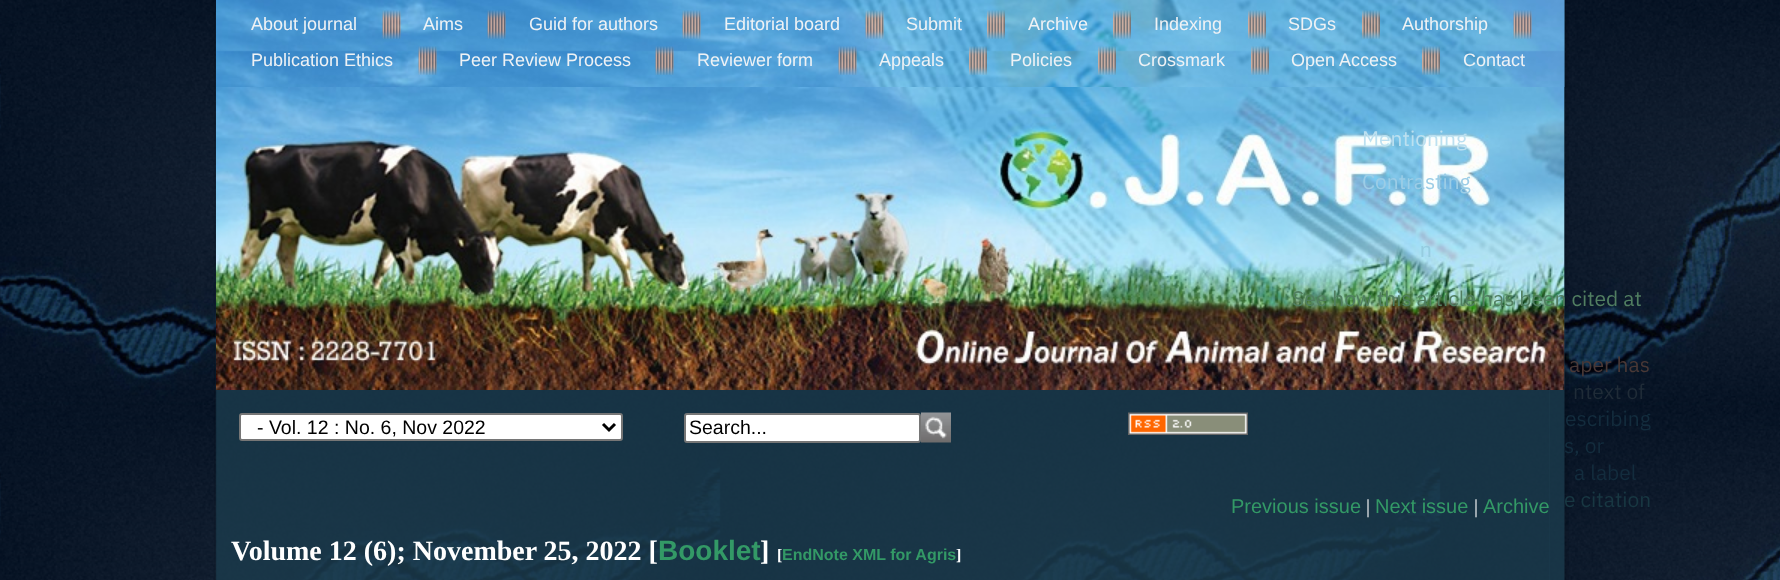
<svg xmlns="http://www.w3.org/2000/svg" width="1780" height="580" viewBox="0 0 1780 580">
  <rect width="100%" height="100%" fill="#fff"/>
  <image x="0" y="0" width="1780" height="580" href="img/1.png"/>
  <image x="1564" y="0" width="2" height="12" href="img/2.png"/>
  <image x="214" y="12" width="17" height="568" href="img/3.png"/>
  <image x="1549" y="12" width="20" height="568" href="img/4.png"/>
  <image x="216" y="0" width="1349" height="87" href="img/5.png"/>
  <image x="382" y="10" width="19" height="29" href="img/6.png"/>
  <image x="487" y="10" width="19" height="29" href="img/7.png"/>
  <image x="682" y="10" width="19" height="29" href="img/8.png"/>
  <image x="865" y="10" width="19" height="29" href="img/9.png"/>
  <image x="987" y="10" width="18" height="29" href="img/10.png"/>
  <image x="1113" y="10" width="18" height="29" href="img/11.png"/>
  <image x="1248" y="10" width="18" height="29" href="img/12.png"/>
  <image x="1362" y="10" width="18" height="29" href="img/13.png"/>
  <image x="1513" y="10" width="19" height="29" href="img/14.png"/>
  <image x="418" y="46" width="19" height="29" href="img/15.png"/>
  <image x="655" y="46" width="19" height="29" href="img/16.png"/>
  <image x="838" y="46" width="19" height="29" href="img/17.png"/>
  <image x="969" y="46" width="18" height="29" href="img/18.png"/>
  <image x="1098" y="46" width="18" height="29" href="img/19.png"/>
  <image x="1251" y="46" width="18" height="29" href="img/20.png"/>
  <image x="1422" y="46" width="18" height="29" href="img/21.png"/>
  <image x="216" y="87" width="1349" height="303" href="img/22.png"/>
  <path d="M231 390h1319v190H231z" fill="#1b3c4dcc"/>
  <rect x="240" y="414" width="382" height="26" rx="2" fill="#fff" stroke="#767676" stroke-width="2"/>
  <path d="M603 424L609 430L615 424" fill="none" stroke="#000" stroke-width="3"/>
  <rect x="685" y="414" width="235" height="28" rx="2" fill="#fff" stroke="#767676" stroke-width="2"/>
  <image x="921" y="412" width="30" height="31" href="img/23.png"/>
  <image x="1128" y="412" width="120" height="23" href="img/24.png"/>
  <g font-family="Liberation Sans" font-size="18" fill="#eff2f5">
    <text x="251" y="30">About journal</text>
    <text x="423" y="30">Aims</text>
    <text x="529" y="30">Guid for authors</text>
    <text x="724" y="30">Editorial board</text>
    <text x="906" y="30">Submit</text>
    <text x="1028" y="30">Archive</text>
    <text x="1154" y="30">Indexing</text>
    <text x="1288" y="30">SDGs</text>
    <text x="1402" y="30">Authorship</text>
    <text x="251" y="66">Publication Ethics</text>
    <text x="459" y="66">Peer Review Process</text>
    <text x="697" y="66">Reviewer form</text>
    <text x="879" y="66">Appeals</text>
    <text x="1010" y="66">Policies</text>
    <text x="1138" y="66">Crossmark</text>
    <text x="1291" y="66">Open Access</text>
    <text x="1463" y="66">Contact</text>
  </g>
  <text x="1362" y="146" font-family="IBM Plex Sans" font-size="21" fill="#bce0f0">Mentioning</text>
  <text x="1362" y="189" font-family="IBM Plex Sans" font-size="21" fill="#9ccde6">Contrasting</text>
  <text x="1420" y="257" font-family="Liberation Sans" font-size="21" fill="#96cce0">n</text>
  <text x="1292" y="306" font-family="IBM Plex Sans" font-size="21" fill="#517e61">See how this article has been cited at</text>
  <text x="1569" y="372" font-family="IBM Plex Sans" font-size="21" fill="#493836">aper has</text>
  <text x="1573" y="399" font-family="IBM Plex Sans" font-size="21" fill="#1f2b37">ntext of</text>
  <g font-family="IBM Plex Sans" font-size="21" fill="#132c3d">
    <text x="1565" y="426">escribing</text>
    <text x="1564" y="453">s, or</text>
    <text x="1574" y="480">a label</text>
  </g>
  <text x="1564" y="507" font-family="IBM Plex Sans" font-size="21" fill="#183742">e citation</text>
  <text x="1231" y="513" font-family="Liberation Sans" font-size="20" fill="#396">Previous issue</text>
  <text x="1366" y="513" font-family="Liberation Serif" font-size="20" fill="#fff">|</text>
  <text x="1375" y="513" font-family="Liberation Sans" font-size="20" fill="#396">Next issue</text>
  <text x="1474" y="513" font-family="Liberation Serif" font-size="20" fill="#fff">|</text>
  <text x="1483" y="513" font-family="Liberation Sans" font-size="20" fill="#396">Archive</text>
  <text x="231" y="560" font-family="Liberation Serif" font-size="28" font-weight="bold" fill="#fff">Volume 12 (6); November 25, 2022 [</text>
  <text x="658" y="560" font-family="Liberation Sans" font-size="28" font-weight="bold" fill="#396">Booklet</text>
  <text x="760" y="560" font-family="Liberation Serif" font-size="28" font-weight="bold" fill="#fff">]</text>
  <text x="777" y="560" font-family="Liberation Serif" font-size="16" font-weight="bold" fill="#fff">[</text>
  <text x="782" y="560" font-family="Liberation Sans" font-size="16" font-weight="bold" fill="#396">EndNote XML for Agris</text>
  <text x="956" y="560" font-family="Liberation Serif" font-size="16" font-weight="bold" fill="#fff">]</text>
  <g font-family="Liberation Sans" font-size="19.5" fill="#000">
    <text x="257" y="434">- Vol. 12 : No. 6, Nov 2022</text>
    <text x="689" y="434">Search...</text>
  </g>
</svg>
